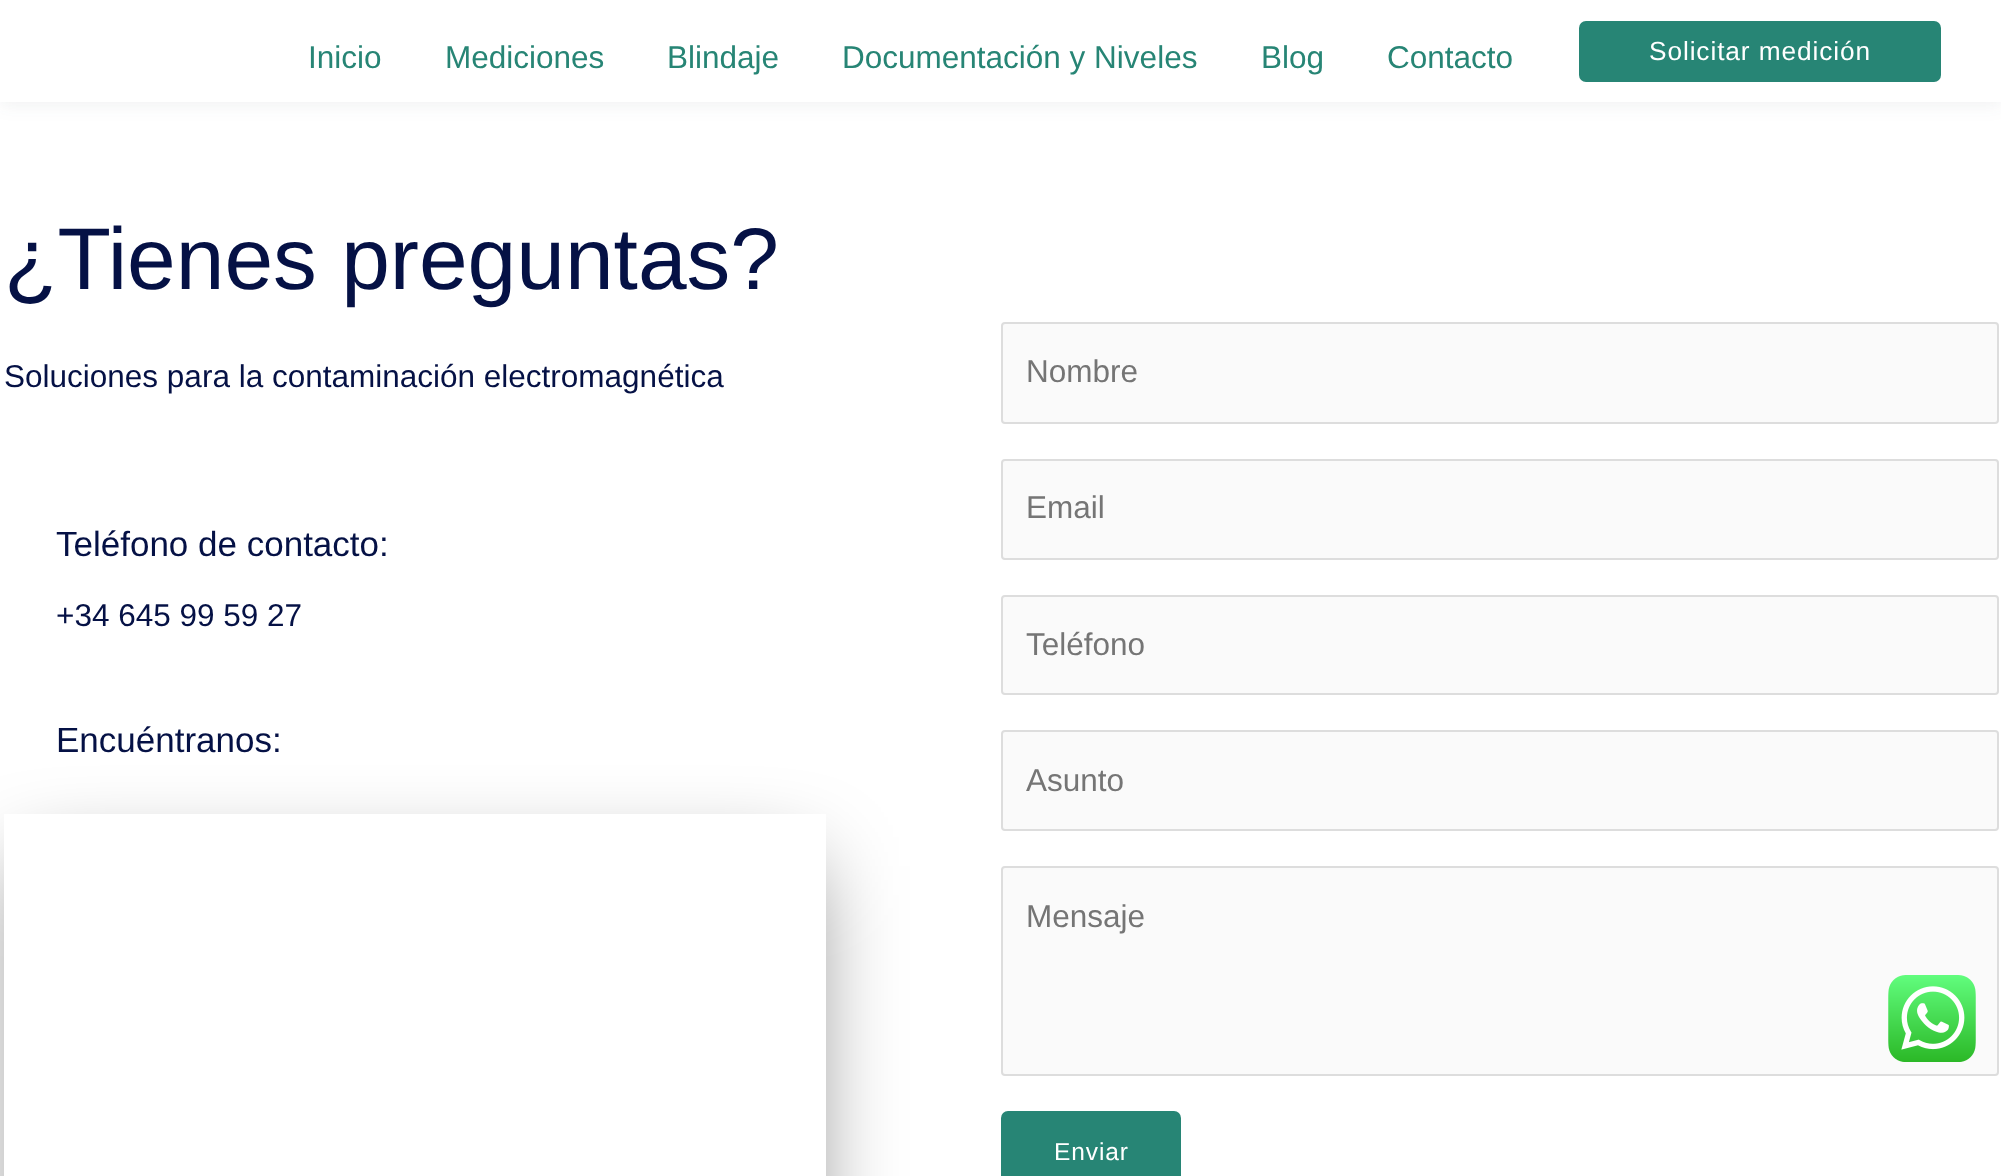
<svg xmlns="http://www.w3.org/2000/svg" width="2001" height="1176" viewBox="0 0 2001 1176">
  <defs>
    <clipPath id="clip1"><path d="M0 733H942V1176H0ZM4 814H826V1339H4Z" clip-rule="evenodd"/></clipPath>
  </defs>
  <rect width="100%" height="100%" fill="#fff"/>
  <path d="M0 4h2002v101H0z" fill="#24324212" filter="blur(9px)"/>
  <path d="M0 0h2001v102H0z" fill="#fff"/>
  <rect x="1579" y="21" width="362" height="61" rx="7" fill="#278575"/>
  <g clip-path="url(#clip1)">
    <path d="M21 866h788v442H21z" fill="#00000080" filter="blur(44px)"/>
  </g>
  <rect x="1002" y="323" width="996" height="100" rx="3" fill="#fafafa" stroke="#ddd" stroke-width="2"/>
  <rect x="1002" y="460" width="996" height="99" rx="3" fill="#fafafa" stroke="#ddd" stroke-width="2"/>
  <rect x="1002" y="596" width="996" height="98" rx="3" fill="#fafafa" stroke="#ddd" stroke-width="2"/>
  <rect x="1002" y="731" width="996" height="99" rx="3" fill="#fafafa" stroke="#ddd" stroke-width="2"/>
  <rect x="1002" y="867" width="996" height="208" rx="3" fill="#fafafa" stroke="#ddd" stroke-width="2"/>
  <rect x="1001" y="1111" width="180" height="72" rx="7" fill="#278575"/>
  <image x="1888" y="975" width="88" height="87" href="img/1.png"/>
  <g font-family="Liberation Sans" font-size="31.5" fill="#278575">
    <text x="308" y="68">Inicio</text>
    <text x="445" y="68">Mediciones</text>
    <text x="667" y="68">Blindaje</text>
    <text x="842" y="68">Documentación y Niveles</text>
    <text x="1261" y="68">Blog</text>
    <text x="1387" y="68">Contacto</text>
  </g>
  <text x="1649" y="60" font-family="Liberation Sans" font-size="26.25" letter-spacing="0.9" fill="#fff">Solicitar medición</text>
  <text x="4" y="289" font-family="Liberation Sans" font-size="87.5" fill="#051145">¿Tienes preguntas?</text>
  <text x="4" y="387" font-family="Liberation Sans" font-size="31.5" fill="#051145">Soluciones para la contaminación electromagnética</text>
  <text x="56" y="556" font-family="Liberation Sans" font-size="35" fill="#051145">Teléfono de contacto:</text>
  <text x="56" y="626" font-family="Liberation Sans" font-size="31.5" fill="#051145">+34 645 99 59 27</text>
  <text x="56" y="752" font-family="Liberation Sans" font-size="35" fill="#051145">Encuéntranos:</text>
  <g font-family="Liberation Sans" font-size="31.5" fill="#757575">
    <text x="1026" y="382">Nombre</text>
    <text x="1026" y="518">Email</text>
    <text x="1026" y="655">Teléfono</text>
    <text x="1026" y="791">Asunto</text>
    <text x="1026" y="927">Mensaje</text>
  </g>
  <text x="1054" y="1160" font-family="Liberation Sans" font-size="24.5" letter-spacing="0.9" fill="#fff">Enviar</text>
</svg>
